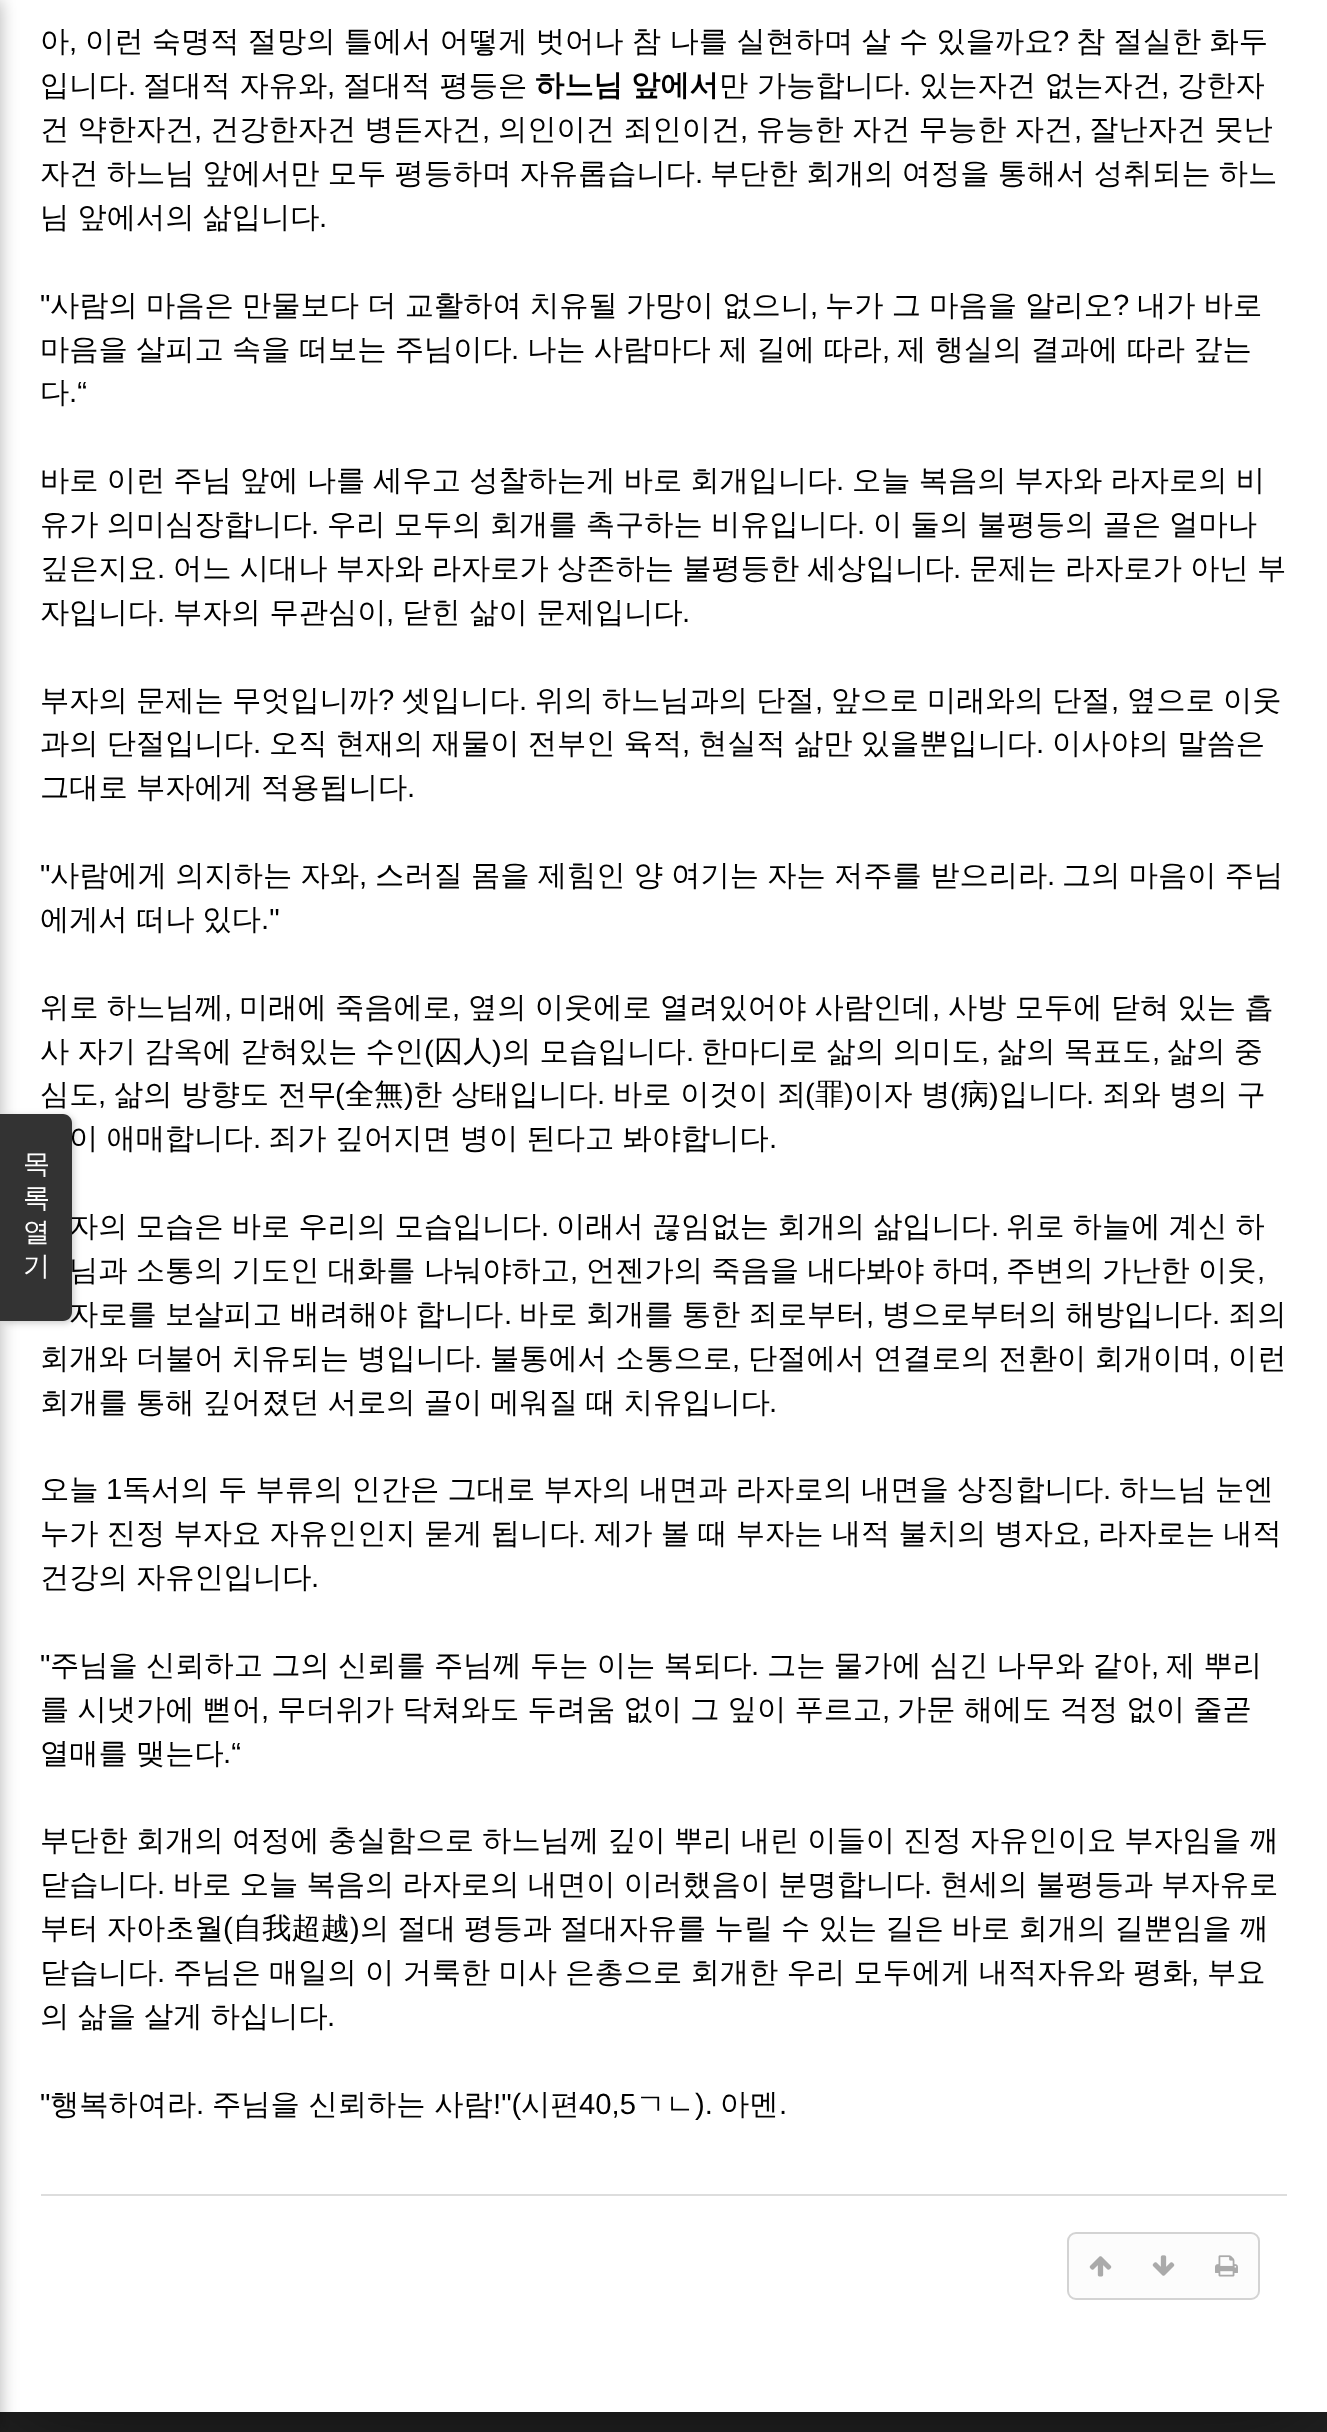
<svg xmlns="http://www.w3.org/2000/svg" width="1327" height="2432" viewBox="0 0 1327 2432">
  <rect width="100%" height="100%" fill="#222"/>
  <path d="M0 -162h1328v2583H0z" fill="#00000080" filter="blur(54px)"/>
  <path d="M0 0h1327v2412H0z" fill="#fff"/>
  <path d="M-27 0h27v2432H-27z" fill="#0000004d" filter="blur(9px)"/>
  <rect x="2" y="1116" width="72" height="207" rx="9" fill="#00000033" filter="blur(3.5px)"/>
  <path d="M41 2194h1246v2H41z" fill="#ddd"/>
  <rect x="1068" y="2233" width="191" height="66" rx="8" fill="#fcfcfc" stroke="#d3d3d3" stroke-width="2"/>
  <image x="1089" y="2256" width="23" height="21" href="img/1.png"/>
  <image x="1152" y="2255" width="23" height="21" href="img/2.png"/>
  <image x="1215" y="2255" width="23" height="22" href="img/3.png"/>
  <text x="40" y="51" font-family="WenQuanYi Zen Hei" font-size="29.25" font-weight="500" fill="#000">아</text>
  <text x="69" y="51" font-family="Liberation Sans" font-size="29.25" fill="#000">,</text>
  <text x="85" y="51" word-spacing="-0.5" font-family="WenQuanYi Zen Hei" font-size="29.25" font-weight="500" fill="#000">이런 숙명적 절망의 틀에서 어떻게 벗어나 참 나를 실현하며 살 수 있을까요</text>
  <text x="1053" y="51" font-family="Liberation Sans" font-size="29.25" fill="#000">?</text>
  <g font-family="WenQuanYi Zen Hei" font-size="29.25" font-weight="500" fill="#000">
    <text x="1076" y="51" word-spacing="-0.5">참 절실한 화두</text>
    <text x="40" y="95">입니다</text>
  </g>
  <text x="128" y="95" font-family="Liberation Sans" font-size="29.25" fill="#000">.</text>
  <text x="143" y="95" font-family="WenQuanYi Zen Hei" font-size="29.25" font-weight="500" fill="#000">절대적 자유와</text>
  <text x="327" y="95" font-family="Liberation Sans" font-size="29.25" fill="#000">,</text>
  <text x="343" y="95" font-family="WenQuanYi Zen Hei" font-size="29.25" font-weight="500" fill="#000">절대적 평등은</text>
  <text x="535" y="95" word-spacing="-0.6" font-family="WenQuanYi Zen Hei" font-size="29.25" font-weight="bold" fill="#000">하느님 앞에서</text>
  <text x="719" y="95" font-family="WenQuanYi Zen Hei" font-size="29.25" font-weight="500" fill="#000">만 가능합니다</text>
  <text x="903" y="95" font-family="Liberation Sans" font-size="29.25" fill="#000">.</text>
  <text x="919" y="95" font-family="WenQuanYi Zen Hei" font-size="29.25" font-weight="500" fill="#000">있는자건 없는자건</text>
  <text x="1161" y="95" font-family="Liberation Sans" font-size="29.25" fill="#000">,</text>
  <g font-family="WenQuanYi Zen Hei" font-size="29.25" font-weight="500" fill="#000">
    <text x="1177" y="95">강한자</text>
    <text x="40" y="139" word-spacing="-0.5">건 약한자건</text>
  </g>
  <text x="194" y="139" font-family="Liberation Sans" font-size="29.25" fill="#000">,</text>
  <text x="210" y="139" word-spacing="-0.5" font-family="WenQuanYi Zen Hei" font-size="29.25" font-weight="500" fill="#000">건강한자건 병든자건</text>
  <text x="482" y="139" font-family="Liberation Sans" font-size="29.25" fill="#000">,</text>
  <text x="498" y="139" word-spacing="-0.5" font-family="WenQuanYi Zen Hei" font-size="29.25" font-weight="500" fill="#000">의인이건 죄인이건</text>
  <text x="740" y="139" font-family="Liberation Sans" font-size="29.25" fill="#000">,</text>
  <text x="756" y="139" word-spacing="-0.5" font-family="WenQuanYi Zen Hei" font-size="29.25" font-weight="500" fill="#000">유능한 자건 무능한 자건</text>
  <text x="1074" y="139" font-family="Liberation Sans" font-size="29.25" fill="#000">,</text>
  <g font-family="WenQuanYi Zen Hei" font-size="29.25" font-weight="500" fill="#000">
    <text x="1089" y="139" word-spacing="-0.5">잘난자건 못난</text>
    <text x="40" y="183" word-spacing="-0.6">자건 하느님 앞에서만 모두 평등하며 자유롭습니다</text>
  </g>
  <text x="695" y="183" font-family="Liberation Sans" font-size="29.25" fill="#000">.</text>
  <g font-family="WenQuanYi Zen Hei" font-size="29.25" font-weight="500" fill="#000">
    <text x="710" y="183" word-spacing="-0.6">부단한 회개의 여정을 통해서 성취되는 하느</text>
    <text x="40" y="227" word-spacing="-0.6">님 앞에서의 삶입니다</text>
  </g>
  <g font-family="Liberation Sans" font-size="29.25" fill="#000">
    <text x="319" y="227">.</text>
    <text x="40" y="315">"</text>
  </g>
  <text x="50" y="315" word-spacing="-0.5" font-family="WenQuanYi Zen Hei" font-size="29.25" font-weight="500" fill="#000">사람의 마음은 만물보다 더 교활하여 치유될 가망이 없으니</text>
  <text x="810" y="315" font-family="Liberation Sans" font-size="29.25" fill="#000">,</text>
  <text x="825" y="315" word-spacing="-0.5" font-family="WenQuanYi Zen Hei" font-size="29.25" font-weight="500" fill="#000">누가 그 마음을 알리오</text>
  <text x="1113" y="315" font-family="Liberation Sans" font-size="29.25" fill="#000">?</text>
  <g font-family="WenQuanYi Zen Hei" font-size="29.25" font-weight="500" fill="#000">
    <text x="1137" y="315" word-spacing="-0.5">내가 바로</text>
    <text x="40" y="359" word-spacing="-0.5">마음을 살피고 속을 떠보는 주님이다</text>
  </g>
  <text x="511" y="359" font-family="Liberation Sans" font-size="29.25" fill="#000">.</text>
  <text x="527" y="359" word-spacing="-0.5" font-family="WenQuanYi Zen Hei" font-size="29.25" font-weight="500" fill="#000">나는 사람마다 제 길에 따라</text>
  <text x="882" y="359" font-family="Liberation Sans" font-size="29.25" fill="#000">,</text>
  <g font-family="WenQuanYi Zen Hei" font-size="29.25" font-weight="500" fill="#000">
    <text x="897" y="359" word-spacing="-0.5">제 행실의 결과에 따라 갚는</text>
    <text x="40" y="402">다</text>
  </g>
  <text x="69" y="402" font-family="Liberation Sans" font-size="29.25" fill="#000">.“</text>
  <text x="40" y="490" word-spacing="-0.6" font-family="WenQuanYi Zen Hei" font-size="29.25" font-weight="500" fill="#000">바로 이런 주님 앞에 나를 세우고 성찰하는게 바로 회개입니다</text>
  <text x="836" y="490" font-family="Liberation Sans" font-size="29.25" fill="#000">.</text>
  <g font-family="WenQuanYi Zen Hei" font-size="29.25" font-weight="500" fill="#000">
    <text x="852" y="490" word-spacing="-0.6">오늘 복음의 부자와 라자로의 비</text>
    <text x="40" y="534" word-spacing="-0.5">유가 의미심장합니다</text>
  </g>
  <text x="311" y="534" font-family="Liberation Sans" font-size="29.25" fill="#000">.</text>
  <text x="327" y="534" word-spacing="-0.5" font-family="WenQuanYi Zen Hei" font-size="29.25" font-weight="500" fill="#000">우리 모두의 회개를 촉구하는 비유입니다</text>
  <text x="857" y="534" font-family="Liberation Sans" font-size="29.25" fill="#000">.</text>
  <g font-family="WenQuanYi Zen Hei" font-size="29.25" font-weight="500" fill="#000">
    <text x="873" y="534" word-spacing="-0.5">이 둘의 불평등의 골은 얼마나</text>
    <text x="40" y="578">깊은지요</text>
  </g>
  <text x="157" y="578" font-family="Liberation Sans" font-size="29.25" fill="#000">.</text>
  <text x="173" y="578" word-spacing="-0.5" font-family="WenQuanYi Zen Hei" font-size="29.25" font-weight="500" fill="#000">어느 시대나 부자와 라자로가 상존하는 불평등한 세상입니다</text>
  <text x="953" y="578" font-family="Liberation Sans" font-size="29.25" fill="#000">.</text>
  <g font-family="WenQuanYi Zen Hei" font-size="29.25" font-weight="500" fill="#000">
    <text x="969" y="578" word-spacing="-0.5">문제는 라자로가 아닌 부</text>
    <text x="40" y="622">자입니다</text>
  </g>
  <text x="157" y="622" font-family="Liberation Sans" font-size="29.25" fill="#000">.</text>
  <text x="173" y="622" font-family="WenQuanYi Zen Hei" font-size="29.25" font-weight="500" fill="#000">부자의 무관심이</text>
  <text x="386" y="622" font-family="Liberation Sans" font-size="29.25" fill="#000">,</text>
  <text x="402" y="622" font-family="WenQuanYi Zen Hei" font-size="29.25" font-weight="500" fill="#000">닫힌 삶이 문제입니다</text>
  <text x="682" y="622" font-family="Liberation Sans" font-size="29.25" fill="#000">.</text>
  <text x="40" y="710" word-spacing="-0.5" font-family="WenQuanYi Zen Hei" font-size="29.25" font-weight="500" fill="#000">부자의 문제는 무엇입니까</text>
  <text x="378" y="710" font-family="Liberation Sans" font-size="29.25" fill="#000">?</text>
  <text x="402" y="710" font-family="WenQuanYi Zen Hei" font-size="29.25" font-weight="500" fill="#000">셋입니다</text>
  <text x="519" y="710" font-family="Liberation Sans" font-size="29.25" fill="#000">.</text>
  <text x="535" y="710" word-spacing="-0.5" font-family="WenQuanYi Zen Hei" font-size="29.25" font-weight="500" fill="#000">위의 하느님과의 단절</text>
  <text x="815" y="710" font-family="Liberation Sans" font-size="29.25" fill="#000">,</text>
  <text x="831" y="710" word-spacing="-0.5" font-family="WenQuanYi Zen Hei" font-size="29.25" font-weight="500" fill="#000">앞으로 미래와의 단절</text>
  <text x="1111" y="710" font-family="Liberation Sans" font-size="29.25" fill="#000">,</text>
  <g font-family="WenQuanYi Zen Hei" font-size="29.25" font-weight="500" fill="#000">
    <text x="1127" y="710" word-spacing="-0.5">옆으로 이웃</text>
    <text x="40" y="753" word-spacing="-0.5">과의 단절입니다</text>
  </g>
  <text x="253" y="753" font-family="Liberation Sans" font-size="29.25" fill="#000">.</text>
  <text x="269" y="753" word-spacing="-0.5" font-family="WenQuanYi Zen Hei" font-size="29.25" font-weight="500" fill="#000">오직 현재의 재물이 전부인 육적</text>
  <text x="682" y="753" font-family="Liberation Sans" font-size="29.25" fill="#000">,</text>
  <text x="698" y="753" word-spacing="-0.5" font-family="WenQuanYi Zen Hei" font-size="29.25" font-weight="500" fill="#000">현실적 삶만 있을뿐입니다</text>
  <text x="1036" y="753" font-family="Liberation Sans" font-size="29.25" fill="#000">.</text>
  <g font-family="WenQuanYi Zen Hei" font-size="29.25" font-weight="500" fill="#000">
    <text x="1052" y="753" word-spacing="-0.5">이사야의 말씀은</text>
    <text x="40" y="797" word-spacing="-0.6">그대로 부자에게 적용됩니다</text>
  </g>
  <g font-family="Liberation Sans" font-size="29.25" fill="#000">
    <text x="407" y="797">.</text>
    <text x="40" y="885">"</text>
  </g>
  <g font-family="WenQuanYi Zen Hei" font-size="29.25" font-weight="500" fill="#000">
    <text x="50" y="885" word-spacing="-0.5">사람에게 의지하는 자와</text>
    <text x="375" y="885" word-spacing="-0.5">스러질 몸을 제힘인 양 여기는 자는 저주를 받으리라</text>
    <text x="1062" y="885" word-spacing="-0.5">그의 마음이 주님</text>
  </g>
  <g font-family="Liberation Sans" font-size="29.25" fill="#000">
    <text x="359" y="885">,</text>
    <text x="1047" y="885">.</text>
  </g>
  <text x="40" y="929" word-spacing="-0.6" font-family="WenQuanYi Zen Hei" font-size="29.25" font-weight="500" fill="#000">에게서 떠나 있다</text>
  <text x="261" y="929" font-family="Liberation Sans" font-size="29.25" fill="#000">."</text>
  <text x="40" y="1017" word-spacing="-0.5" font-family="WenQuanYi Zen Hei" font-size="29.25" font-weight="500" fill="#000">위로 하느님께</text>
  <text x="224" y="1017" font-family="Liberation Sans" font-size="29.25" fill="#000">,</text>
  <text x="239" y="1017" word-spacing="-0.5" font-family="WenQuanYi Zen Hei" font-size="29.25" font-weight="500" fill="#000">미래에 죽음에로</text>
  <text x="452" y="1017" font-family="Liberation Sans" font-size="29.25" fill="#000">,</text>
  <text x="468" y="1017" word-spacing="-0.5" font-family="WenQuanYi Zen Hei" font-size="29.25" font-weight="500" fill="#000">옆의 이웃에로 열려있어야 사람인데</text>
  <text x="932" y="1017" font-family="Liberation Sans" font-size="29.25" fill="#000">,</text>
  <g font-family="WenQuanYi Zen Hei" font-size="29.25" font-weight="500" fill="#000">
    <text x="948" y="1017" word-spacing="-0.5">사방 모두에 닫혀 있는 흡</text>
    <text x="40" y="1061" word-spacing="-0.5">사 자기 감옥에 갇혀있는 수인</text>
  </g>
  <text x="424" y="1061" font-family="Liberation Sans" font-size="29.25" fill="#000">(</text>
  <text x="434" y="1061" font-family="WenQuanYi Zen Hei" font-size="29.25" font-weight="500" fill="#000">囚人</text>
  <text x="492" y="1061" font-family="Liberation Sans" font-size="29.25" fill="#000">)</text>
  <text x="502" y="1061" word-spacing="-0.5" font-family="WenQuanYi Zen Hei" font-size="29.25" font-weight="500" fill="#000">의 모습입니다</text>
  <text x="686" y="1061" font-family="Liberation Sans" font-size="29.25" fill="#000">.</text>
  <text x="701" y="1061" word-spacing="-0.5" font-family="WenQuanYi Zen Hei" font-size="29.25" font-weight="500" fill="#000">한마디로 삶의 의미도</text>
  <text x="981" y="1061" font-family="Liberation Sans" font-size="29.25" fill="#000">,</text>
  <text x="997" y="1061" word-spacing="-0.5" font-family="WenQuanYi Zen Hei" font-size="29.25" font-weight="500" fill="#000">삶의 목표도</text>
  <text x="1152" y="1061" font-family="Liberation Sans" font-size="29.25" fill="#000">,</text>
  <g font-family="WenQuanYi Zen Hei" font-size="29.25" font-weight="500" fill="#000">
    <text x="1167" y="1061" word-spacing="-0.5">삶의 중</text>
    <text x="40" y="1104">심도</text>
  </g>
  <text x="98" y="1104" font-family="Liberation Sans" font-size="29.25" fill="#000">,</text>
  <text x="114" y="1104" font-family="WenQuanYi Zen Hei" font-size="29.25" font-weight="500" fill="#000">삶의 방향도 전무</text>
  <text x="335" y="1104" font-family="Liberation Sans" font-size="29.25" fill="#000">(</text>
  <text x="345" y="1104" font-family="WenQuanYi Zen Hei" font-size="29.25" font-weight="500" fill="#000">全無</text>
  <text x="404" y="1104" font-family="Liberation Sans" font-size="29.25" fill="#000">)</text>
  <text x="413" y="1104" font-family="WenQuanYi Zen Hei" font-size="29.25" font-weight="500" fill="#000">한 상태입니다</text>
  <text x="597" y="1104" font-family="Liberation Sans" font-size="29.25" fill="#000">.</text>
  <text x="613" y="1104" font-family="WenQuanYi Zen Hei" font-size="29.25" font-weight="500" fill="#000">바로 이것이 죄</text>
  <text x="805" y="1104" font-family="Liberation Sans" font-size="29.25" fill="#000">(</text>
  <text x="815" y="1104" font-family="WenQuanYi Zen Hei" font-size="29.25" font-weight="500" fill="#000">罪</text>
  <text x="844" y="1104" font-family="Liberation Sans" font-size="29.25" fill="#000">)</text>
  <text x="854" y="1104" font-family="WenQuanYi Zen Hei" font-size="29.25" font-weight="500" fill="#000">이자 병</text>
  <text x="950" y="1104" font-family="Liberation Sans" font-size="29.25" fill="#000">(</text>
  <text x="960" y="1104" font-family="WenQuanYi Zen Hei" font-size="29.25" font-weight="500" fill="#000">病</text>
  <text x="989" y="1104" font-family="Liberation Sans" font-size="29.25" fill="#000">)</text>
  <text x="999" y="1104" font-family="WenQuanYi Zen Hei" font-size="29.25" font-weight="500" fill="#000">입니다</text>
  <text x="1086" y="1104" font-family="Liberation Sans" font-size="29.25" fill="#000">.</text>
  <g font-family="WenQuanYi Zen Hei" font-size="29.25" font-weight="500" fill="#000">
    <text x="1102" y="1104">죄와 병의 구</text>
    <text x="69" y="1148" word-spacing="-0.6">이 애매합니다</text>
  </g>
  <text x="253" y="1148" font-family="Liberation Sans" font-size="29.25" fill="#000">.</text>
  <text x="268" y="1148" word-spacing="-0.6" font-family="WenQuanYi Zen Hei" font-size="29.25" font-weight="500" fill="#000">죄가 깊어지면 병이 된다고 봐야합니다</text>
  <text x="769" y="1148" font-family="Liberation Sans" font-size="29.25" fill="#000">.</text>
  <text x="69" y="1236" word-spacing="-0.5" font-family="WenQuanYi Zen Hei" font-size="29.25" font-weight="500" fill="#000">자의 모습은 바로 우리의 모습입니다</text>
  <text x="541" y="1236" font-family="Liberation Sans" font-size="29.25" fill="#000">.</text>
  <text x="556" y="1236" word-spacing="-0.5" font-family="WenQuanYi Zen Hei" font-size="29.25" font-weight="500" fill="#000">이래서 끊임없는 회개의 삶입니다</text>
  <text x="991" y="1236" font-family="Liberation Sans" font-size="29.25" fill="#000">.</text>
  <g font-family="WenQuanYi Zen Hei" font-size="29.25" font-weight="500" fill="#000">
    <text x="1006" y="1236" word-spacing="-0.5">위로 하늘에 계신 하</text>
    <text x="69" y="1280" word-spacing="-0.5">님과 소통의 기도인 대화를 나눠야하고</text>
  </g>
  <text x="570" y="1280" font-family="Liberation Sans" font-size="29.25" fill="#000">,</text>
  <text x="586" y="1280" word-spacing="-0.5" font-family="WenQuanYi Zen Hei" font-size="29.25" font-weight="500" fill="#000">언젠가의 죽음을 내다봐야 하며</text>
  <text x="991" y="1280" font-family="Liberation Sans" font-size="29.25" fill="#000">,</text>
  <text x="1006" y="1280" word-spacing="-0.5" font-family="WenQuanYi Zen Hei" font-size="29.25" font-weight="500" fill="#000">주변의 가난한 이웃</text>
  <text x="1257" y="1280" font-family="Liberation Sans" font-size="29.25" fill="#000">,</text>
  <text x="69" y="1324" word-spacing="-0.5" font-family="WenQuanYi Zen Hei" font-size="29.25" font-weight="500" fill="#000">자로를 보살피고 배려해야 합니다</text>
  <path d="M0 1114H63C68 1114 72 1118 72 1123V1312C72 1317 68 1321 63 1321H0Z" fill="#333"/>
  <g font-family="WenQuanYi Zen Hei" font-size="27" font-weight="500" fill="#fff">
    <text x="23" y="1275">기</text>
    <text x="23" y="1241">열</text>
    <text x="23" y="1207">록</text>
    <text x="23" y="1173">목</text>
  </g>
  <text x="504" y="1324" font-family="Liberation Sans" font-size="29.25" fill="#000">.</text>
  <text x="519" y="1324" word-spacing="-0.5" font-family="WenQuanYi Zen Hei" font-size="29.25" font-weight="500" fill="#000">바로 회개를 통한 죄로부터</text>
  <text x="866" y="1324" font-family="Liberation Sans" font-size="29.25" fill="#000">,</text>
  <text x="882" y="1324" word-spacing="-0.5" font-family="WenQuanYi Zen Hei" font-size="29.25" font-weight="500" fill="#000">병으로부터의 해방입니다</text>
  <text x="1212" y="1324" font-family="Liberation Sans" font-size="29.25" fill="#000">.</text>
  <g font-family="WenQuanYi Zen Hei" font-size="29.25" font-weight="500" fill="#000">
    <text x="1228" y="1324">죄의</text>
    <text x="40" y="1368" word-spacing="-0.5">회개와 더불어 치유되는 병입니다</text>
  </g>
  <text x="474" y="1368" font-family="Liberation Sans" font-size="29.25" fill="#000">.</text>
  <text x="490" y="1368" word-spacing="-0.5" font-family="WenQuanYi Zen Hei" font-size="29.25" font-weight="500" fill="#000">불통에서 소통으로</text>
  <text x="732" y="1368" font-family="Liberation Sans" font-size="29.25" fill="#000">,</text>
  <text x="748" y="1368" word-spacing="-0.5" font-family="WenQuanYi Zen Hei" font-size="29.25" font-weight="500" fill="#000">단절에서 연결로의 전환이 회개이며</text>
  <text x="1212" y="1368" font-family="Liberation Sans" font-size="29.25" fill="#000">,</text>
  <g font-family="WenQuanYi Zen Hei" font-size="29.25" font-weight="500" fill="#000">
    <text x="1228" y="1368">이런</text>
    <text x="40" y="1412" word-spacing="-0.6">회개를 통해 깊어졌던 서로의 골이 메워질 때 치유입니다</text>
  </g>
  <text x="769" y="1412" font-family="Liberation Sans" font-size="29.25" fill="#000">.</text>
  <text x="40" y="1499" font-family="WenQuanYi Zen Hei" font-size="29.25" font-weight="500" fill="#000">오늘</text>
  <text x="106" y="1499" font-family="Liberation Sans" font-size="29.25" fill="#000">1</text>
  <text x="122" y="1499" word-spacing="-0.5" font-family="WenQuanYi Zen Hei" font-size="29.25" font-weight="500" fill="#000">독서의 두 부류의 인간은 그대로 부자의 내면과 라자로의 내면을 상징합니다</text>
  <text x="1103" y="1499" font-family="Liberation Sans" font-size="29.25" fill="#000">.</text>
  <g font-family="WenQuanYi Zen Hei" font-size="29.25" font-weight="500" fill="#000">
    <text x="1119" y="1499" word-spacing="-0.5">하느님 눈엔</text>
    <text x="40" y="1543" word-spacing="-0.5">누가 진정 부자요 자유인인지 묻게 됩니다</text>
  </g>
  <text x="578" y="1543" font-family="Liberation Sans" font-size="29.25" fill="#000">.</text>
  <text x="594" y="1543" word-spacing="-0.5" font-family="WenQuanYi Zen Hei" font-size="29.25" font-weight="500" fill="#000">제가 볼 때 부자는 내적 불치의 병자요</text>
  <text x="1082" y="1543" font-family="Liberation Sans" font-size="29.25" fill="#000">,</text>
  <g font-family="WenQuanYi Zen Hei" font-size="29.25" font-weight="500" fill="#000">
    <text x="1098" y="1543" word-spacing="-0.5">라자로는 내적</text>
    <text x="40" y="1587" word-spacing="-0.6">건강의 자유인입니다</text>
  </g>
  <g font-family="Liberation Sans" font-size="29.25" fill="#000">
    <text x="311" y="1587">.</text>
    <text x="40" y="1675">"</text>
  </g>
  <g font-family="WenQuanYi Zen Hei" font-size="29.25" font-weight="500" fill="#000">
    <text x="50" y="1675" word-spacing="-0.5">주님을 신뢰하고 그의 신뢰를 주님께 두는 이는 복되다</text>
    <text x="767" y="1675" word-spacing="-0.5">그는 물가에 심긴 나무와 같아</text>
    <text x="1166" y="1675" word-spacing="-0.5">제 뿌리</text>
  </g>
  <g font-family="Liberation Sans" font-size="29.25" fill="#000">
    <text x="751" y="1675">.</text>
    <text x="1151" y="1675">,</text>
  </g>
  <text x="40" y="1719" word-spacing="-0.5" font-family="WenQuanYi Zen Hei" font-size="29.25" font-weight="500" fill="#000">를 시냇가에 뻗어</text>
  <text x="261" y="1719" font-family="Liberation Sans" font-size="29.25" fill="#000">,</text>
  <text x="277" y="1719" word-spacing="-0.5" font-family="WenQuanYi Zen Hei" font-size="29.25" font-weight="500" fill="#000">무더위가 닥쳐와도 두려움 없이 그 잎이 푸르고</text>
  <text x="882" y="1719" font-family="Liberation Sans" font-size="29.25" fill="#000">,</text>
  <g font-family="WenQuanYi Zen Hei" font-size="29.25" font-weight="500" fill="#000">
    <text x="897" y="1719" word-spacing="-0.5">가문 해에도 걱정 없이 줄곧</text>
    <text x="40" y="1763" word-spacing="-0.6">열매를 맺는다</text>
  </g>
  <text x="223" y="1763" font-family="Liberation Sans" font-size="29.25" fill="#000">.“</text>
  <g font-family="WenQuanYi Zen Hei" font-size="29.25" font-weight="500" fill="#000">
    <text x="40" y="1850" word-spacing="-0.6">부단한 회개의 여정에 충실함으로 하느님께 깊이 뿌리 내린 이들이 진정 자유인이요 부자임을 깨</text>
    <text x="40" y="1894">닫습니다</text>
  </g>
  <text x="157" y="1894" font-family="Liberation Sans" font-size="29.25" fill="#000">.</text>
  <text x="173" y="1894" word-spacing="-0.5" font-family="WenQuanYi Zen Hei" font-size="29.25" font-weight="500" fill="#000">바로 오늘 복음의 라자로의 내면이 이러했음이 분명합니다</text>
  <text x="924" y="1894" font-family="Liberation Sans" font-size="29.25" fill="#000">.</text>
  <g font-family="WenQuanYi Zen Hei" font-size="29.25" font-weight="500" fill="#000">
    <text x="940" y="1894" word-spacing="-0.5">현세의 불평등과 부자유로</text>
    <text x="40" y="1938" word-spacing="-0.6">부터 자아초월</text>
  </g>
  <text x="223" y="1938" font-family="Liberation Sans" font-size="29.25" fill="#000">(</text>
  <text x="233" y="1938" font-family="WenQuanYi Zen Hei" font-size="29.25" font-weight="500" fill="#000">自我超越</text>
  <text x="350" y="1938" font-family="Liberation Sans" font-size="29.25" fill="#000">)</text>
  <g font-family="WenQuanYi Zen Hei" font-size="29.25" font-weight="500" fill="#000">
    <text x="360" y="1938" word-spacing="-0.6">의 절대 평등과 절대자유를 누릴 수 있는 길은 바로 회개의 길뿐임을 깨</text>
    <text x="40" y="1982">닫습니다</text>
  </g>
  <text x="157" y="1982" font-family="Liberation Sans" font-size="29.25" fill="#000">.</text>
  <text x="173" y="1982" word-spacing="-0.5" font-family="WenQuanYi Zen Hei" font-size="29.25" font-weight="500" fill="#000">주님은 매일의 이 거룩한 미사 은총으로 회개한 우리 모두에게 내적자유와 평화</text>
  <text x="1191" y="1982" font-family="Liberation Sans" font-size="29.25" fill="#000">,</text>
  <g font-family="WenQuanYi Zen Hei" font-size="29.25" font-weight="500" fill="#000">
    <text x="1207" y="1982">부요</text>
    <text x="40" y="2026" word-spacing="-0.6">의 삶을 살게 하십니다</text>
  </g>
  <g font-family="Liberation Sans" font-size="29.25" fill="#000">
    <text x="327" y="2026">.</text>
    <text x="40" y="2114">"</text>
  </g>
  <g font-family="WenQuanYi Zen Hei" font-size="29.25" font-weight="500" fill="#000">
    <text x="50" y="2114">행복하여라</text>
    <text x="212" y="2114">주님을 신뢰하는 사람</text>
  </g>
  <text x="493" y="2114" font-family="Liberation Sans" font-size="29.25" fill="#000">!"(</text>
  <text x="521" y="2114" font-family="WenQuanYi Zen Hei" font-size="29.25" font-weight="500" fill="#000">시편</text>
  <text x="579" y="2114" font-family="Liberation Sans" font-size="29.25" fill="#000">40,5</text>
  <text x="636" y="2114" font-family="WenQuanYi Zen Hei" font-size="29.25" font-weight="500" fill="#000">ㄱㄴ</text>
  <text x="695" y="2114" font-family="Liberation Sans" font-size="29.25" fill="#000">).</text>
  <text x="720" y="2114" font-family="WenQuanYi Zen Hei" font-size="29.25" font-weight="500" fill="#000">아멘</text>
  <g font-family="Liberation Sans" font-size="29.25" fill="#000">
    <text x="196" y="2114">.</text>
    <text x="779" y="2114">.</text>
  </g>
</svg>
